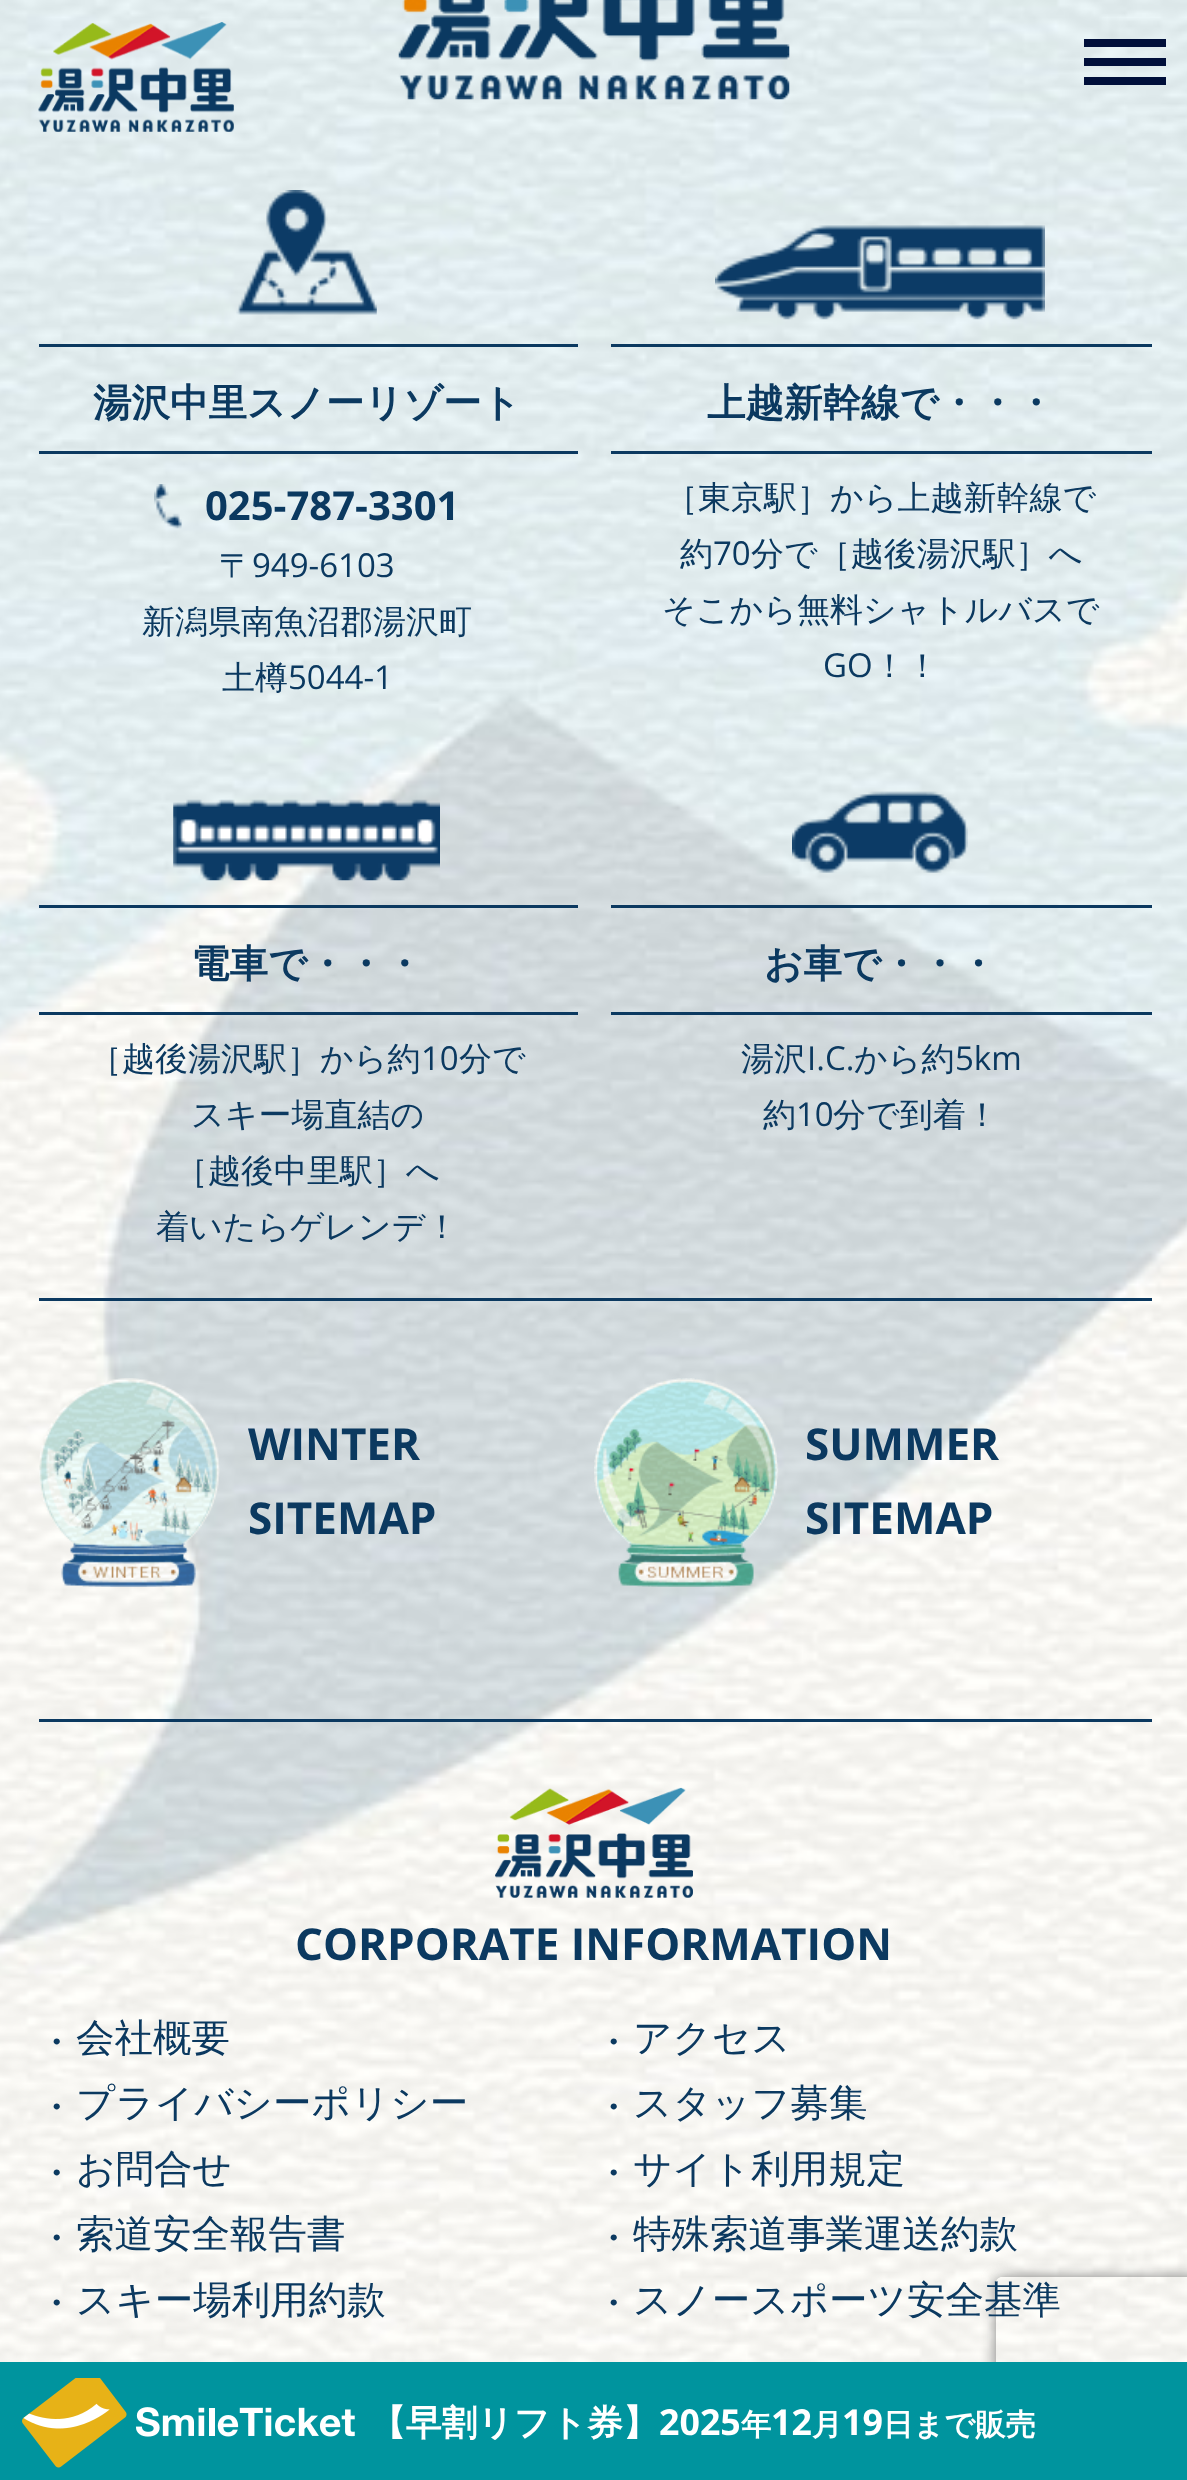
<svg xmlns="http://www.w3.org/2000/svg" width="1187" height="2480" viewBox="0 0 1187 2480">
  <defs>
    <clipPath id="clip1"><path d="M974 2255H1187V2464H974ZM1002 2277H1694C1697.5 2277 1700 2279.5 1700 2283V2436C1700 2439.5 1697.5 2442 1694 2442H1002C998.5 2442 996 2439.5 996 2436V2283C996 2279.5 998.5 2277 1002 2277Z" clip-rule="evenodd"/></clipPath>
  </defs>
  <rect width="100%" height="100%" fill="#fff"/>
  <image x="0" y="0" width="1187" height="2362" href="img/2.png"/>
  <image x="38" y="22" width="196" height="110" href="img/1.png"/>
  <path d="M1084 39h82v8H1084z" fill="#000f3a"/>
  <path d="M1084 58h82v8H1084z" fill="#000f3a"/>
  <path d="M1084 77h82v8H1084z" fill="#000f3a"/>
  <image x="398" y="0" width="392" height="100" href="img/3.png"/>
  <image x="236" y="190" width="141" height="125" href="img/4.png"/>
  <path d="M39 344h539v3H39z" fill="#0b3960"/>
  <path d="M39 451h539v3H39z" fill="#0b3960"/>
  <image x="154" y="484" width="28" height="45" href="img/5.png"/>
  <image x="715" y="225" width="330" height="95" href="img/6.png"/>
  <path d="M611 344h541v3H611z" fill="#0b3960"/>
  <path d="M611 451h541v3H611z" fill="#0b3960"/>
  <image x="173" y="799" width="267" height="82" href="img/7.png"/>
  <path d="M39 905h539v3H39z" fill="#0b3960"/>
  <path d="M39 1012h539v3H39z" fill="#0b3960"/>
  <image x="792" y="791" width="176" height="82" href="img/8.png"/>
  <path d="M611 905h541v3H611z" fill="#0b3960"/>
  <path d="M611 1012h541v3H611z" fill="#0b3960"/>
  <path d="M39 1298h1113v3H39z" fill="#0b3960"/>
  <image x="39" y="1378" width="181" height="209" href="img/9.png"/>
  <image x="594" y="1378" width="185" height="209" href="img/10.png"/>
  <path d="M39 1719h1113v3H39z" fill="#0b3960"/>
  <image x="495" y="1787" width="198" height="111" href="img/11.png"/>
  <g clip-path="url(#clip1)">
    <rect x="996" y="2277" width="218" height="165" rx="6" fill="#808080" filter="blur(7px)"/>
  </g>
  <path d="M0 2362h1187v118H0z" fill="#00949e"/>
  <image x="22" y="2378" width="333" height="90" href="img/12.png"/>
  <text x="93" y="416" font-family="WenQuanYi Zen Hei" font-size="38.5" font-weight="bold" fill="#0b3960">湯沢中里スノーリゾート</text>
  <text x="205" y="520" font-family="Open Sans" font-size="40" font-weight="bold" fill="#0b3960">025-787-3301</text>
  <text x="219" y="577" font-family="WenQuanYi Zen Hei" font-size="33" font-weight="500" fill="#0b3960">〒</text>
  <text x="252" y="577" font-family="Open Sans" font-size="33" fill="#0b3960">949-6103</text>
  <g font-family="WenQuanYi Zen Hei" font-size="33" font-weight="500" fill="#0b3960">
    <text x="142" y="633">新潟県南魚沼郡湯沢町</text>
    <text x="222" y="689">土樽</text>
  </g>
  <text x="288" y="689" font-family="Open Sans" font-size="33" fill="#0b3960">5044-1</text>
  <text x="707" y="416" font-family="WenQuanYi Zen Hei" font-size="38.5" font-weight="bold" fill="#0b3960">上越新幹線で・・・</text>
  <g font-family="WenQuanYi Zen Hei" font-size="33" font-weight="500" fill="#0b3960">
    <text x="665" y="509">［東京駅］から上越新幹線で</text>
    <text x="680" y="565">約</text>
  </g>
  <text x="713" y="565" font-family="Open Sans" font-size="33" fill="#0b3960">70</text>
  <g font-family="WenQuanYi Zen Hei" font-size="33" font-weight="500" fill="#0b3960">
    <text x="751" y="565">分で［越後湯沢駅］へ</text>
    <text x="662" y="621">そこから無料シャトルバスで</text>
  </g>
  <text x="823" y="677" font-family="Open Sans" font-size="33" fill="#0b3960">GO</text>
  <text x="873" y="677" font-family="WenQuanYi Zen Hei" font-size="33" font-weight="500" fill="#0b3960">！！</text>
  <text x="191" y="977" font-family="WenQuanYi Zen Hei" font-size="38.5" font-weight="bold" fill="#0b3960">電車で・・・</text>
  <text x="89" y="1070" font-family="WenQuanYi Zen Hei" font-size="33" font-weight="500" fill="#0b3960">［越後湯沢駅］から約</text>
  <text x="421" y="1070" font-family="Open Sans" font-size="33" fill="#0b3960">10</text>
  <g font-family="WenQuanYi Zen Hei" font-size="33" font-weight="500" fill="#0b3960">
    <text x="459" y="1070">分で</text>
    <text x="191" y="1126">スキー場直結の</text>
    <text x="175" y="1182">［越後中里駅］へ</text>
    <text x="156" y="1238">着いたらゲレンデ！</text>
  </g>
  <text x="764" y="977" font-family="WenQuanYi Zen Hei" font-size="38.5" font-weight="bold" fill="#0b3960">お車で・・・</text>
  <text x="741" y="1070" font-family="WenQuanYi Zen Hei" font-size="33" font-weight="500" fill="#0b3960">湯沢</text>
  <text x="807" y="1070" font-family="Open Sans" font-size="33" fill="#0b3960">I.C.</text>
  <text x="854" y="1070" font-family="WenQuanYi Zen Hei" font-size="33" font-weight="500" fill="#0b3960">から約</text>
  <text x="955" y="1070" font-family="Open Sans" font-size="33" fill="#0b3960">5km</text>
  <text x="763" y="1126" font-family="WenQuanYi Zen Hei" font-size="33" font-weight="500" fill="#0b3960">約</text>
  <text x="796" y="1126" font-family="Open Sans" font-size="33" fill="#0b3960">10</text>
  <text x="833" y="1126" font-family="WenQuanYi Zen Hei" font-size="33" font-weight="500" fill="#0b3960">分で到着！</text>
  <g font-family="Open Sans" font-size="44" font-weight="bold" fill="#0b3960">
    <text x="248" y="1460">WINTER</text>
    <text x="248" y="1534">SITEMAP</text>
    <text x="805" y="1460">SUMMER</text>
    <text x="805" y="1534">SITEMAP</text>
    <text x="295" y="1960">CORPORATE INFORMATION</text>
  </g>
  <g font-family="WenQuanYi Zen Hei" font-size="38.5" font-weight="500" fill="#0b3960">
    <text x="37" y="2055">・</text>
    <text x="76" y="2051">会社概要</text>
    <text x="594" y="2055">・</text>
    <text x="633" y="2051">アクセス</text>
    <text x="37" y="2120">・</text>
    <text x="76" y="2116">プライバシーポリシー</text>
    <text x="594" y="2120">・</text>
    <text x="633" y="2116">スタッフ募集</text>
    <text x="37" y="2186">・</text>
    <text x="76" y="2182">お問合せ</text>
    <text x="594" y="2186">・</text>
    <text x="633" y="2182">サイト利用規定</text>
    <text x="37" y="2251">・</text>
    <text x="76" y="2247">索道安全報告書</text>
    <text x="594" y="2251">・</text>
    <text x="633" y="2247">特殊索道事業運送約款</text>
    <text x="37" y="2316">・</text>
    <text x="76" y="2313">スキー場利用約款</text>
    <text x="594" y="2316">・</text>
    <text x="633" y="2313">スノースポーツ安全基準</text>
  </g>
  <text x="370" y="2435" font-family="WenQuanYi Zen Hei" font-size="35.75" font-weight="bold" fill="#fff">【早割リフト券】</text>
  <text x="659" y="2435" font-family="Open Sans" font-size="35.75" font-weight="bold" fill="#fff">2025</text>
  <text x="741" y="2435" font-family="WenQuanYi Zen Hei" font-size="30.25" font-weight="bold" fill="#fff">年</text>
  <text x="771" y="2435" font-family="Open Sans" font-size="35.75" font-weight="bold" fill="#fff">12</text>
  <text x="812" y="2435" font-family="WenQuanYi Zen Hei" font-size="30.25" font-weight="bold" fill="#fff">月</text>
  <text x="842" y="2435" font-family="Open Sans" font-size="35.75" font-weight="bold" fill="#fff">19</text>
  <text x="883" y="2435" font-family="WenQuanYi Zen Hei" font-size="30.25" font-weight="bold" fill="#fff">日まで販売</text>
</svg>
